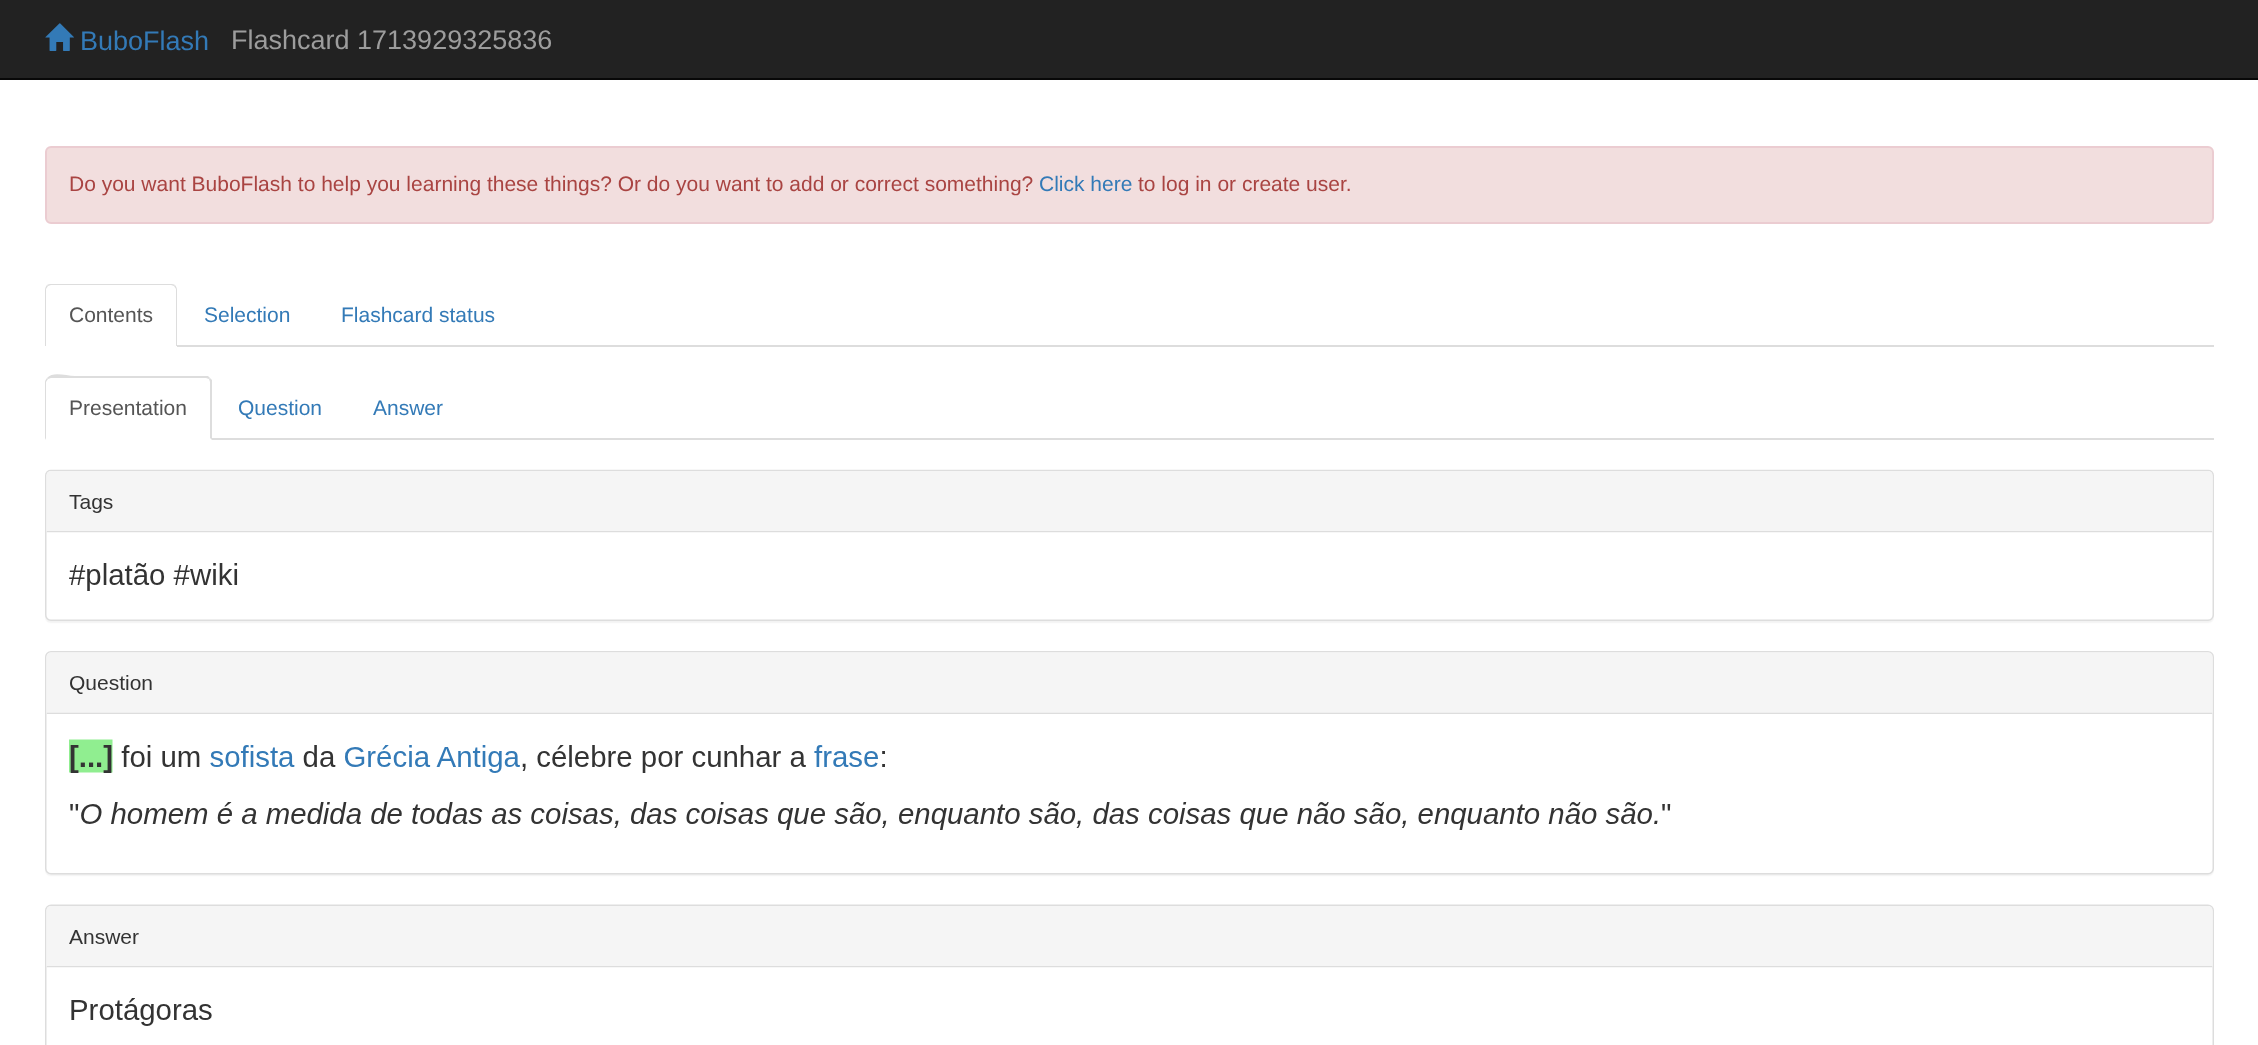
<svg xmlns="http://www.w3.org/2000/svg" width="2258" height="1045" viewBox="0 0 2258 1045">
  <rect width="100%" height="100%" fill="#fff"/>
  <path d="M0 0h2258v78H0z" fill="#222"/>
  <path d="M0 78h2258v2H0z" fill="#080808"/>
  <image x="45" y="23" width="29" height="28" href="img/1.png"/>
  <rect x="46" y="147" width="2167" height="76" rx="5" fill="#f2dede" stroke="#ebccd1" stroke-width="2"/>
  <path d="M177 345h2037v2H177z" fill="#ddd"/>
  <path d="M51 284C50 284 48 284 47 285L48 286L51 285H171L174 286L175 285C174 284 172 284 171 284Z" fill="#ddd"/>
  <path d="M175 285C176 286 177 288 177 290V346H176V345V289L174 286Z" fill="#ddd"/>
  <path d="M45 290V346H46V345V289L48 286L47 285C46 286 45 288 45 290Z" fill="#ddd"/>
  <path d="M212 438h2002v2H212z" fill="#ddd"/>
  <path d="M51 378L48 379L47 378C53 371 66 376 75 376H208L210 378L209 379L206 378Z" fill="#ddd"/>
  <path d="M210 378L212 380V440L210 438V382L209 379Z" fill="#ddd"/>
  <path d="M45 440L46 438V382L48 379L47 378C46 379 45 381 45 382Z" fill="#ddd"/>
  <image x="45" y="469" width="2169" height="576" href="img/2.png"/>
  <text x="80" y="50" font-family="Liberation Sans" font-size="27" fill="#337ab7">BuboFlash</text>
  <text x="231" y="49" font-family="Liberation Sans" font-size="27" fill="#9d9d9d">Flashcard 1713929325836</text>
  <text x="69" y="191" font-family="Liberation Sans" font-size="21" fill="#a94442">Do you want BuboFlash to help you learning these things? Or do you want to add or correct something?</text>
  <text x="1039" y="191" font-family="Liberation Sans" font-size="21" fill="#337ab7">Click here</text>
  <text x="1138" y="191" font-family="Liberation Sans" font-size="21" fill="#a94442">to log in or create user.</text>
  <text x="69" y="322" font-family="Liberation Sans" font-size="21" fill="#555">Contents</text>
  <g font-family="Liberation Sans" font-size="21" fill="#337ab7">
    <text x="204" y="322">Selection</text>
    <text x="341" y="322">Flashcard status</text>
  </g>
  <text x="69" y="415" font-family="Liberation Sans" font-size="21" fill="#555">Presentation</text>
  <g font-family="Liberation Sans" font-size="21" fill="#337ab7">
    <text x="238" y="415">Question</text>
    <text x="373" y="415">Answer</text>
  </g>
</svg>
